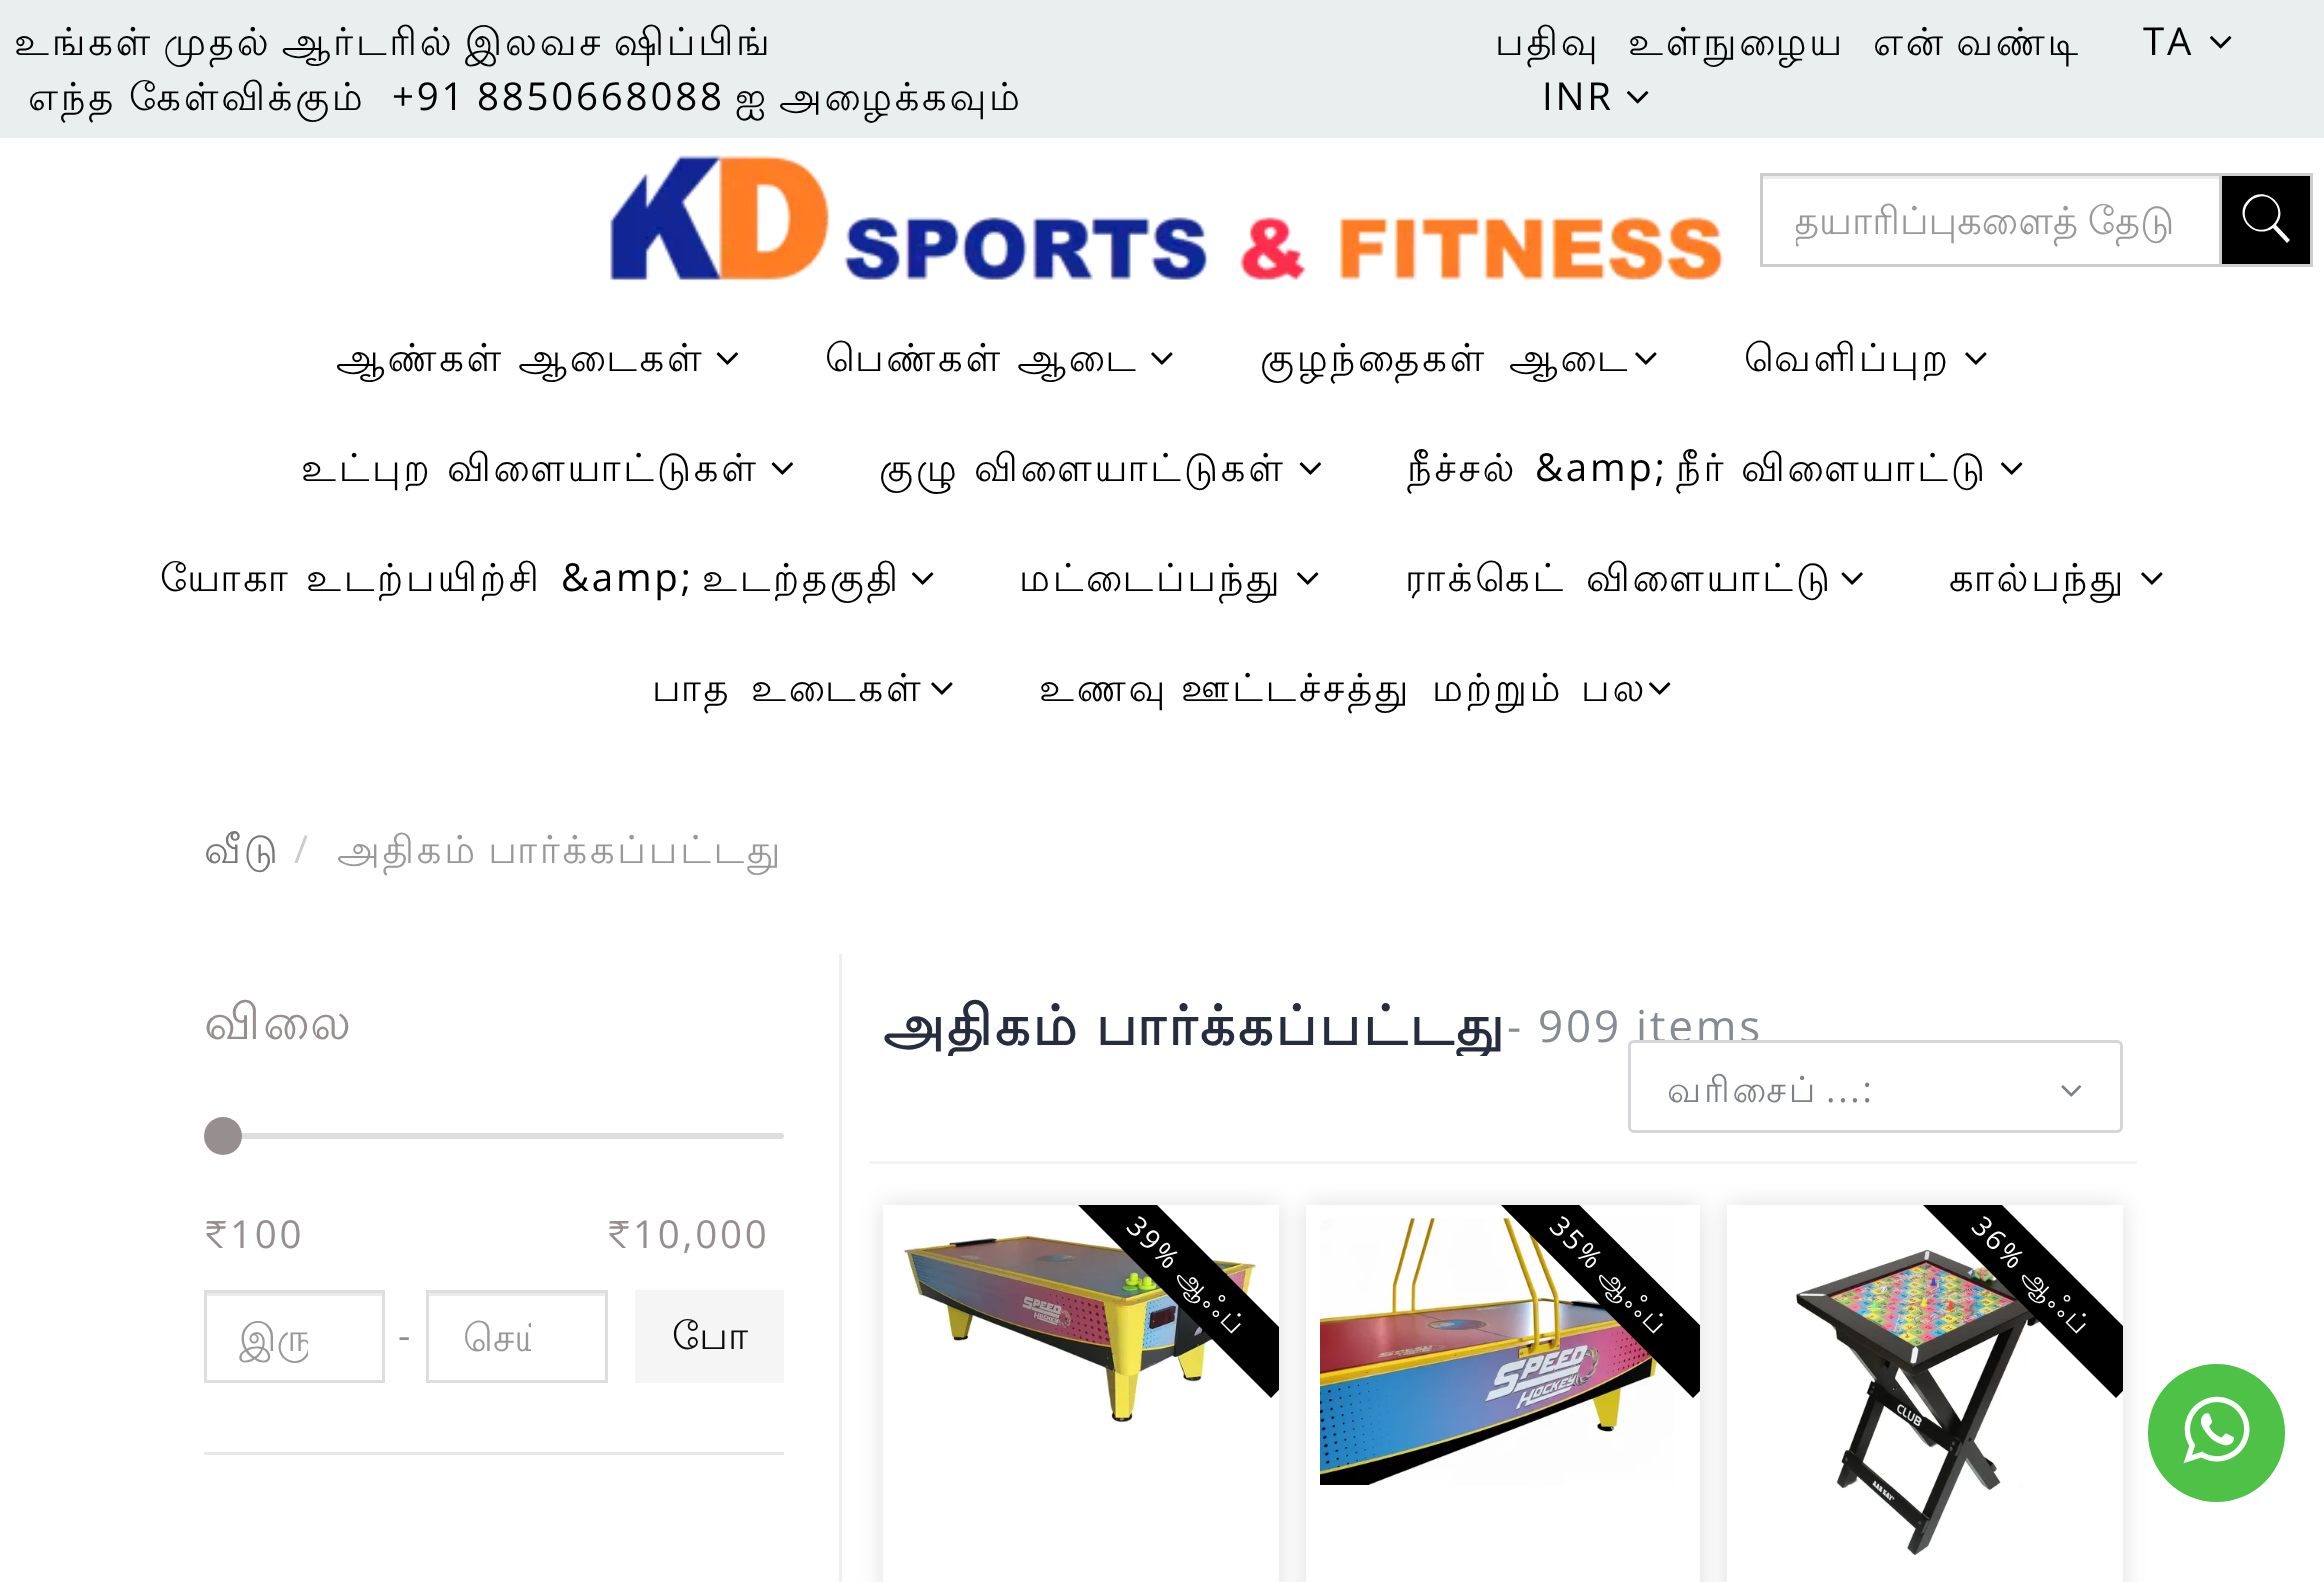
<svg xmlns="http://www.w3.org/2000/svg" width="2324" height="1582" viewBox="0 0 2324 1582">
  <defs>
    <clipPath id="clip1"><path d="M883 1205h396v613H883z"/></clipPath>
    <clipPath id="clip2"><path d="M1306 1205h394v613H1306z"/></clipPath>
    <clipPath id="clip3"><path d="M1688 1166H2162V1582H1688ZM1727 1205H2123V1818H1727Z" clip-rule="evenodd"/></clipPath>
    <clipPath id="clip4"><path d="M1727 1205h396v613H1727z"/></clipPath>
    <clipPath id="clip5"><path d="M1796 193h390v55H1796z"/></clipPath>
    <clipPath id="clip6"><path d="M239 1309h69v55H239z"/></clipPath>
    <clipPath id="clip7"><path d="M462 1309h69v55H462z"/></clipPath>
    <clipPath id="clip8"><path d="M883 996h624v60H883z"/></clipPath>
  </defs>
  <rect width="100%" height="100%" fill="#fff"/>
  <path d="M0 0h2324v138H0z" fill="#e9efee"/>
  <image x="2210" y="36" width="22" height="13" href="img/1.png"/>
  <image x="1627" y="91" width="22" height="13" href="img/1.png"/>
  <image x="610" y="155" width="1114" height="127" href="img/2.png"/>
  <path d="M1763 176h456v3H1763z" fill="#ececec"/>
  <path d="M1761.5 174.5h459v91H1761.5z" fill="none" stroke="#ccc" stroke-width="3"/>
  <path d="M2220.5 174.5h91v91H2220.5z" fill="#000" stroke="#cecece" stroke-width="3"/>
  <path d="M2248 200C2265 183 2291 207 2276 225L2290 240L2287 243L2273 228C2254 241 2232 216 2248 200ZM2273 201C2258 186 2234 210 2250 225C2265 240 2289 217 2273 201Z" fill="#fff"/>
  <image x="716" y="352" width="22" height="13" href="img/3.png"/>
  <image x="1151" y="352" width="22" height="13" href="img/4.png"/>
  <image x="1635" y="352" width="22" height="13" href="img/4.png"/>
  <image x="1965" y="352" width="22" height="13" href="img/4.png"/>
  <image x="771" y="462" width="22" height="13" href="img/3.png"/>
  <image x="1299" y="462" width="22" height="13" href="img/3.png"/>
  <image x="2001" y="462" width="22" height="13" href="img/5.png"/>
  <image x="912" y="572" width="22" height="13" href="img/5.png"/>
  <image x="1297" y="572" width="22" height="13" href="img/5.png"/>
  <image x="1841" y="572" width="22" height="13" href="img/6.png"/>
  <image x="2141" y="572" width="22" height="13" href="img/4.png"/>
  <image x="931" y="682" width="22" height="13" href="img/4.png"/>
  <image x="1649" y="682" width="22" height="13" href="img/5.png"/>
  <path d="M883 1205h396v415H883z" fill="#dedede" filter="blur(12.5px)"/>
  <path d="M883 1205h396v377H883z" fill="#fff"/>
  <image x="902" y="1234" width="356" height="189" href="img/9.png"/>
  <g clip-path="url(#clip1)">
    <path d="M1106 1154L1310 1358L1271 1398L1066 1193Z" fill="#000"/>
  </g>
  <path d="M1306 1205h394v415H1306z" fill="#dedede" filter="blur(12.5px)"/>
  <path d="M1306 1205h394v377H1306z" fill="#fff"/>
  <image x="1320" y="1218" width="355" height="267" href="img/10.png"/>
  <g clip-path="url(#clip2)">
    <path d="M1528 1154L1733 1358L1693 1398L1489 1193Z" fill="#000"/>
  </g>
  <g clip-path="url(#clip3)">
    <path d="M1727 1205h396v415H1727z" fill="#dedede" filter="blur(12.5px)"/>
  </g>
  <rect x="2148" y="1364" width="137" height="138" rx="68.5" fill="#4dc247"/>
  <image x="2183" y="1396" width="67" height="68" href="img/7.png"/>
  <path d="M204 1452h580v3H204z" fill="#e9e9ed"/>
  <rect x="204" y="1133" width="580" height="6" rx="3" fill="#dedede"/>
  <circle cx="223" cy="1136" r="19" fill="#978f8f"/>
  <path d="M206 1293h176v3H206z" fill="#ececec"/>
  <path d="M205.5 1291.5h178v90H205.5z" fill="none" stroke="#dedede" stroke-width="3"/>
  <path d="M429 1293h176v3H429z" fill="#ececec"/>
  <path d="M427.5 1291.5h179v90H427.5z" fill="none" stroke="#dedede" stroke-width="3"/>
  <path d="M635 1290h149v93H635z" fill="#f5f5f5"/>
  <path d="M839 954h3v628H839z" fill="#efefef"/>
  <path d="M869 1161h1268v3H869z" fill="#f3f3f3"/>
  <image x="1796" y="1249" width="254" height="306" href="img/11.png"/>
  <g clip-path="url(#clip4)">
    <path d="M1951 1154L2155 1358L2116 1398L1911 1193Z" fill="#000"/>
  </g>
  <g font-family="Lohit Tamil" font-size="38.5" letter-spacing="2.75" fill="#000">
    <text x="14" y="55" word-spacing="-4">உங்கள் முதல் ஆர்டரில் இலவச ஷிப்பிங்</text>
    <text x="28" y="110">எந்த</text>
    <text x="129" y="110">கேள்விக்கும்</text>
  </g>
  <text x="392" y="110" word-spacing="-2" font-family="Open Sans" font-size="38.5" letter-spacing="2.75" fill="#000">+91 8850668088</text>
  <g font-family="Lohit Tamil" font-size="38.5" letter-spacing="2.75" fill="#000">
    <text x="735" y="110">ஐ</text>
    <text x="779" y="110">அழைக்கவும்</text>
    <text x="1495" y="55">பதிவு</text>
    <text x="1628" y="55">உள்நுழைய</text>
    <text x="1873" y="55" word-spacing="-4">என் வண்டி</text>
  </g>
  <g font-family="Open Sans" font-size="38.5" letter-spacing="2.75" fill="#000">
    <text x="2143" y="55">TA</text>
    <text x="1542" y="110">INR</text>
  </g>
  <g clip-path="url(#clip5)">
    <text x="1794" y="234" word-spacing="-2" font-family="Lohit Tamil" font-size="38.5" fill="#999">தயாரிப்புகளைத் தேடு</text>
  </g>
  <g font-family="Lohit Tamil" font-size="38.5" letter-spacing="2.75" fill="#000">
    <text x="336" y="371">ஆண்கள் ஆடைகள்</text>
    <text x="825" y="371">பெண்கள் ஆடை</text>
    <text x="1260" y="371">குழந்தைகள்</text>
    <text x="1509" y="371">ஆடை</text>
    <text x="1744" y="371">வெளிப்புற</text>
    <text x="301" y="481">உட்புற</text>
    <text x="447" y="481">விளையாட்டுகள்</text>
    <text x="879" y="481">குழு</text>
    <text x="974" y="481">விளையாட்டுகள்</text>
    <text x="1407" y="481">நீச்சல்</text>
  </g>
  <text x="1535" y="481" font-family="Open Sans" font-size="38.5" letter-spacing="2.75" fill="#000">&amp;amp;</text>
  <g font-family="Lohit Tamil" font-size="38.5" letter-spacing="2.75" fill="#000">
    <text x="1676" y="481">நீர்</text>
    <text x="1741" y="481">விளையாட்டு</text>
    <text x="160" y="591">யோகா</text>
    <text x="306" y="591">உடற்பயிற்சி</text>
  </g>
  <text x="561" y="591" font-family="Open Sans" font-size="38.5" letter-spacing="2.75" fill="#000">&amp;amp;</text>
  <g font-family="Lohit Tamil" font-size="38.5" letter-spacing="2.75" fill="#000">
    <text x="702" y="591">உடற்தகுதி</text>
    <text x="1019" y="591">மட்டைப்பந்து</text>
    <text x="1405" y="591">ராக்கெட்</text>
    <text x="1586" y="591">விளையாட்டு</text>
    <text x="1949" y="591">கால்பந்து</text>
    <text x="652" y="701">பாத</text>
    <text x="751" y="701">உடைகள்</text>
    <text x="1039" y="701">உணவு</text>
    <text x="1181" y="701">ஊட்டச்சத்து</text>
    <text x="1432" y="701">மற்றும்</text>
    <text x="1581" y="701">பல</text>
  </g>
  <text x="204" y="863" font-family="Lohit Tamil" font-size="38.5" letter-spacing="2.75" fill="#777">வீடு</text>
  <text x="294" y="863" font-family="Open Sans" font-size="38.5" letter-spacing="2.75" fill="#ccc">/</text>
  <text x="337" y="863" word-spacing="-4" font-family="Lohit Tamil" font-size="38.5" letter-spacing="2.75" fill="#999">அதிகம் பார்க்கப்பட்டது</text>
  <text x="204" y="1039" font-family="Lohit Tamil" font-size="49.5" letter-spacing="2.75" fill="#978f8f">விலை</text>
  <text x="204" y="1248" font-family="Lohit Tamil" font-size="38.5" letter-spacing="2.75" fill="#978f8f">₹</text>
  <text x="230" y="1248" font-family="Open Sans" font-size="38.5" letter-spacing="2.75" fill="#978f8f">100</text>
  <text x="607" y="1248" font-family="Lohit Tamil" font-size="38.5" letter-spacing="2.75" fill="#978f8f">₹</text>
  <text x="633" y="1248" font-family="Open Sans" font-size="38.5" letter-spacing="2.75" fill="#978f8f">10,000</text>
  <g clip-path="url(#clip6)">
    <text x="239" y="1351" font-family="Lohit Tamil" font-size="38.5" fill="#999">இரு</text>
  </g>
  <text x="398" y="1349" font-family="Open Sans" font-size="38.5" letter-spacing="2.75" fill="#978f8f">-</text>
  <g clip-path="url(#clip7)">
    <text x="463" y="1351" font-family="Lohit Tamil" font-size="38.5" fill="#999">செய்</text>
  </g>
  <text x="672" y="1349" font-family="Lohit Tamil" font-size="38.5" fill="#0c0c0c">போ</text>
  <g clip-path="url(#clip8)">
    <text x="883" y="1045" word-spacing="-3" font-family="Lohit Tamil" font-size="55" font-weight="bold" letter-spacing="2.75" fill="#282c3f">அதிகம் பார்க்கப்பட்டது</text>
  </g>
  <text x="1507" y="1042" font-family="Open Sans" font-size="44" letter-spacing="2.75" fill="#878b94">- 909 items</text>
  <rect x="1629.5" y="1041.5" width="492" height="90" rx="4.5" fill="none" stroke="#d5d6d9" stroke-width="3"/>
  <text x="1667" y="1102" font-family="Lohit Tamil" font-size="35.75" letter-spacing="2.75" fill="#7e818c">வரிசைப்</text>
  <text x="1826" y="1102" font-family="Open Sans" font-size="35.75" letter-spacing="2.75" fill="#7e818c">...:</text>
  <image x="2061" y="1085" width="21" height="12" href="img/8.png"/>
  <text x="1125" y="1228" transform="rotate(45 1125 1228)" font-family="Open Sans" font-size="27.5" letter-spacing="2.75" fill="#fff">39%</text>
  <text x="1175" y="1277" transform="rotate(45 1175 1277)" font-family="Lohit Tamil" font-size="27.5" letter-spacing="2.75" fill="#fff">ஆஃப்</text>
  <text x="1548" y="1228" transform="rotate(45 1548 1228)" font-family="Open Sans" font-size="27.5" letter-spacing="2.75" fill="#fff">35%</text>
  <text x="1597" y="1277" transform="rotate(45 1597 1277)" font-family="Lohit Tamil" font-size="27.5" letter-spacing="2.75" fill="#fff">ஆஃப்</text>
  <text x="1970" y="1228" transform="rotate(45 1970 1228)" font-family="Open Sans" font-size="27.5" letter-spacing="2.75" fill="#fff">36%</text>
  <text x="2020" y="1277" transform="rotate(45 2020 1277)" font-family="Lohit Tamil" font-size="27.5" letter-spacing="2.75" fill="#fff">ஆஃப்</text>
</svg>
